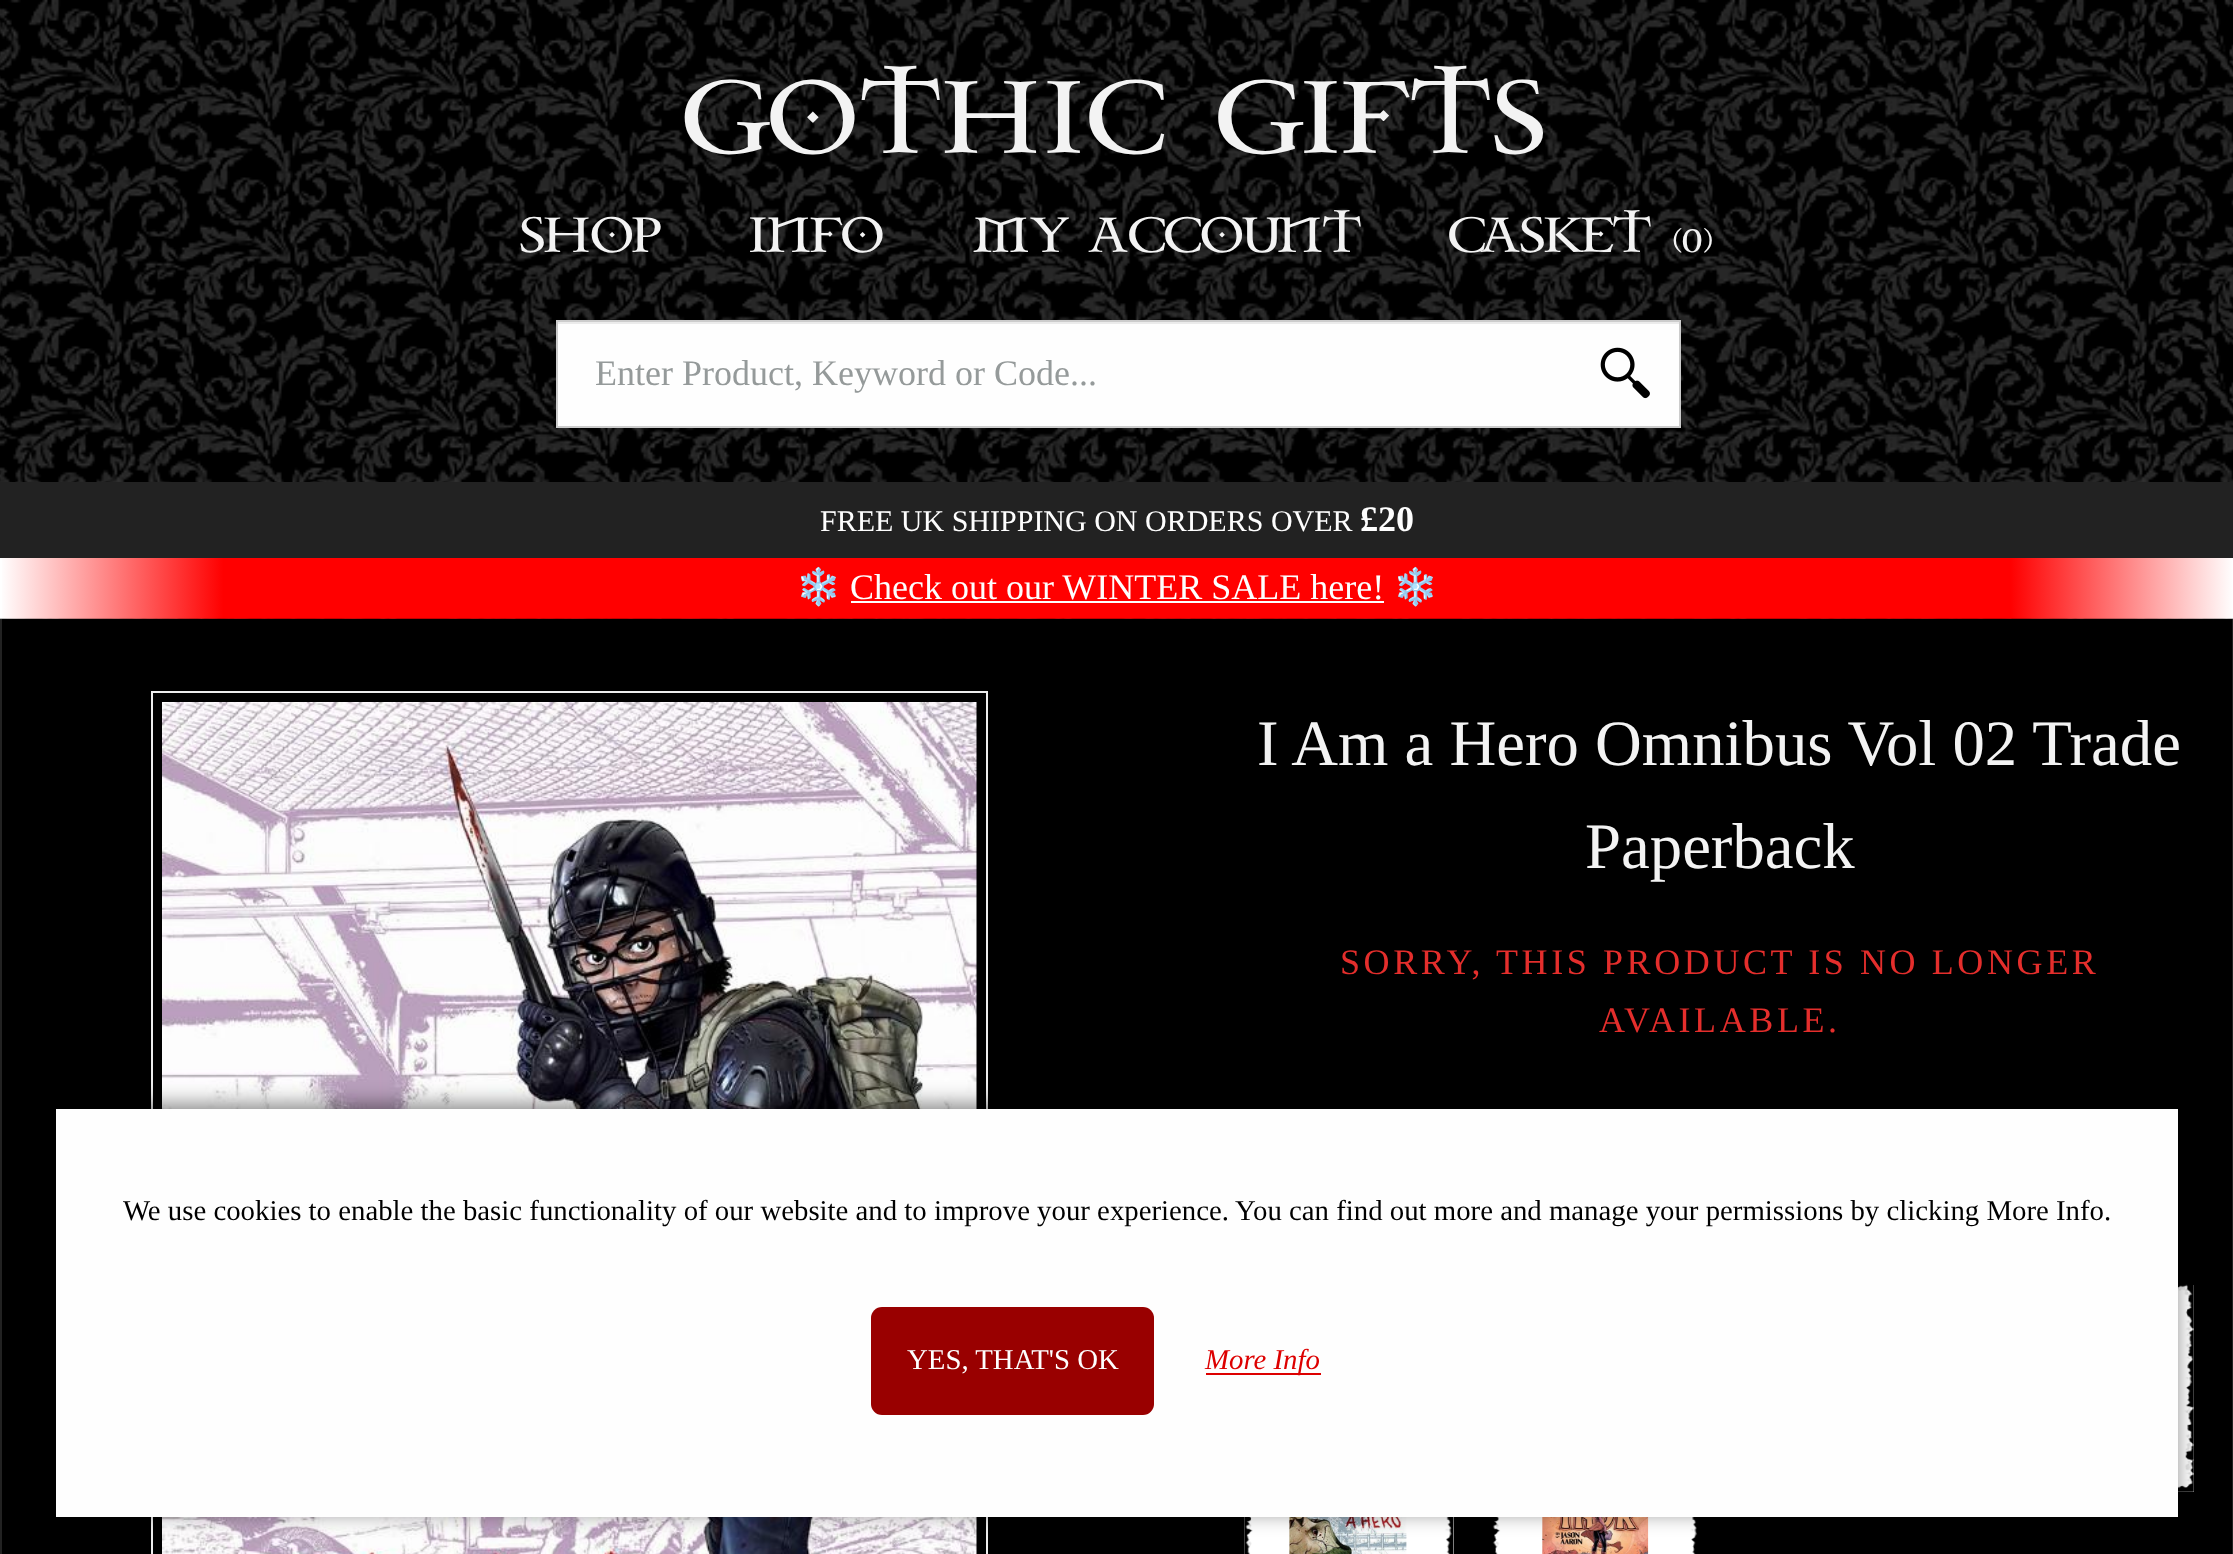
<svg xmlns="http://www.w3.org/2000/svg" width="2233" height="1554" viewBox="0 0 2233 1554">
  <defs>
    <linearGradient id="g1" gradientUnits="userSpaceOnUse" x1="0" y1="588" x2="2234" y2="588"><stop offset="0" stop-color="#fff"/><stop offset="0.1" stop-color="#f00"/><stop offset="0.9" stop-color="#f00"/><stop offset="1" stop-color="#fff"/></linearGradient>
  </defs>
  <rect width="100%" height="100%" fill="#fff"/>
  <image x="0" y="0" width="2233" height="482" href="img/1.png"/>
  <path d="M558 324h1121v102H558z" fill="#fefefe"/>
  <path d="M558 322h1121v2H558z" fill="#ebebeb"/>
  <path d="M557 321h1123v106H557z" fill="none" stroke="#ccc" stroke-width="2"/>
  <image x="1600" y="347" width="50" height="52" href="img/3.png"/>
  <path d="M0 482h2233v76H0z" fill="#222"/>
  <path d="M2 558h2230v61H2z" fill="url(#g1)"/>
  <path d="M851 601h533v2H851z" fill="#fff"/>
  <image x="0" y="618" width="2233" height="1" href="img/4.png"/>
  <path d="M2 619h2230v935H2z" fill="#000"/>
  <path d="M2232 619h1v935H2232z" fill="#222"/>
  <path d="M0 619h2v935H0z" fill="#222"/>
  <image x="162" y="702" width="815" height="852" href="img/5.png"/>
  <path d="M152 692h835v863H152z" fill="none" stroke="#eee" stroke-width="2"/>
  <path d="M2178 1285h16v207H2178z" fill="#fff"/>
  <image x="2178" y="1284" width="16" height="208" href="img/6.png"/>
  <path d="M1244 1517h210v37H1244z" fill="#fff"/>
  <image x="1244" y="1517" width="210" height="37" href="img/7.png"/>
  <image x="1289" y="1517" width="118" height="37" href="img/8.png"/>
  <image x="1491" y="1517" width="208" height="37" href="img/9.png"/>
  <image x="1542" y="1517" width="107" height="37" href="img/10.png"/>
  <path d="M54 1105h2122v407H54z" fill="#00000080" filter="blur(11px)"/>
  <path d="M56 1109h2122v408H56z" fill="#fefefe"/>
  <rect x="871" y="1307" width="283" height="108" rx="11" fill="#900"/>
  <path d="M1206 1373h115v2H1206z" fill="#d00"/>
  <text x="684" y="153" font-family="'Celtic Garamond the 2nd'" font-size="90" letter-spacing="4.5" fill="#f3f3f3">GOTHIC GIFTS</text>
  <g font-family="'Celtic Garamond the 2nd'" font-size="43.25" fill="#f3f3f3">
    <text x="521" y="252">SHOP</text>
    <text x="749" y="252">INFO</text>
    <text x="974" y="252">MY ACCOUNT</text>
    <text x="1480" y="252">ASKET</text>
  </g>
  <image x="1449" y="216" width="36" height="37" href="img/2.png"/>
  <text x="1673" y="252" font-family="'Celtic Garamond the 2nd'" font-size="30" fill="#f3f3f3">(0)</text>
  <text x="595" y="385" font-family="Liberation Serif" font-size="36" fill="#959a9a">Enter Product, Keyword or Code...</text>
  <text x="820" y="531" font-family="Liberation Serif" font-size="30" fill="#fefefe">FREE UK SHIPPING ON ORDERS OVER</text>
  <text x="1360" y="531" font-family="Liberation Serif" font-size="36" font-weight="bold" fill="#fefefe">£20</text>
  <text x="796" y="599" font-family="Noto Color Emoji" font-size="36" fill="#fefefe">❄️</text>
  <text x="850" y="599" font-family="Liberation Serif" font-size="36" fill="#fefefe">Check out our WINTER SALE here!</text>
  <text x="1393" y="599" font-family="Noto Color Emoji" font-size="36" fill="#fefefe">❄️</text>
  <g font-family="Liberation Serif" font-size="64.75" fill="#f3f3f3">
    <text x="1257" y="765">I Am a Hero Omnibus Vol 02 Trade</text>
    <text x="1585" y="868">Paperback</text>
  </g>
  <g font-family="Liberation Serif" font-size="36" letter-spacing="3.6" fill="#e42e2c">
    <text x="1340" y="974">SORRY, THIS PRODUCT IS NO LONGER</text>
    <text x="1599" y="1032">AVAILABLE.</text>
  </g>
  <text x="123" y="1220" font-family="Liberation Serif" font-size="28.8" fill="#000">We use cookies to enable the basic functionality of our website and to improve your experience. You can find out more and manage your permissions by clicking More Info.</text>
  <text x="907" y="1369" font-family="Liberation Serif" font-size="28.8" fill="#fefefe">YES, THAT'S OK</text>
  <text x="1205" y="1369" font-family="Liberation Serif" font-size="28.8" font-style="italic" fill="#d00">More Info</text>
</svg>
